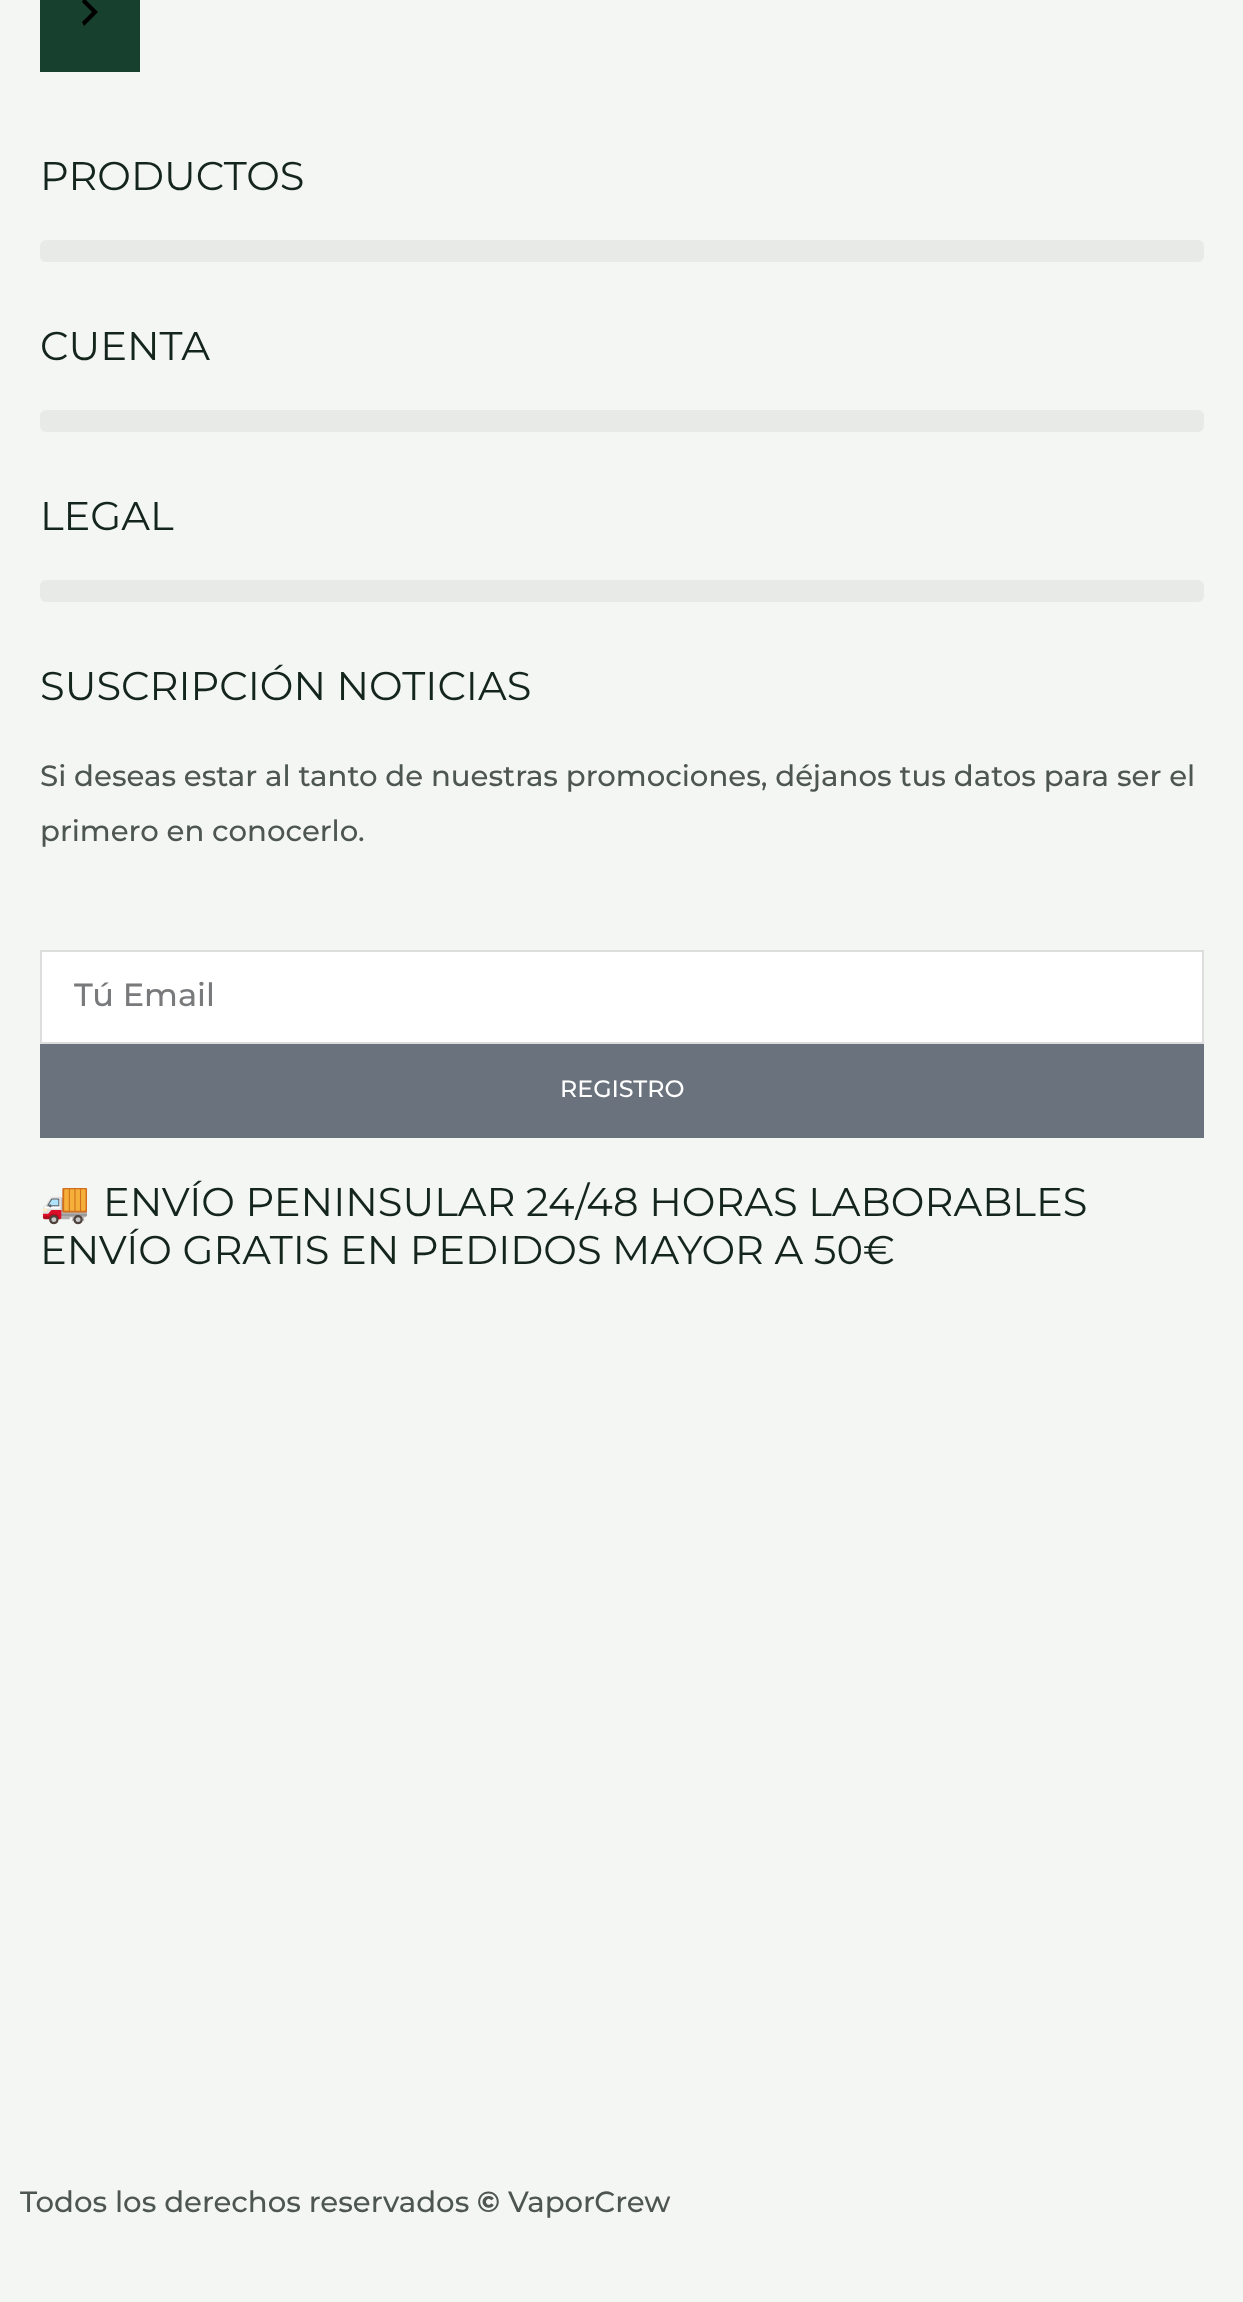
<svg xmlns="http://www.w3.org/2000/svg" width="1243" height="2302" viewBox="0 0 1243 2302">
  <rect width="100%" height="100%" fill="#f4f6f4"/>
  <path d="M40 0h100v72H40z" fill="#17402e"/>
  <path d="M82 22L92 12L82 2L84-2L98 12L84 26Z" fill="#000"/>
  <rect x="40" y="240" width="1164" height="22" rx="6" fill="#e8eae8"/>
  <rect x="40" y="410" width="1164" height="22" rx="6" fill="#e8eae8"/>
  <rect x="40" y="580" width="1164" height="22" rx="6" fill="#e8eae8"/>
  <path d="M41 951h1162v92H41z" fill="#fff" stroke="#ddd" stroke-width="2"/>
  <path d="M40 1044h1164v94H40z" fill="#69727d"/>
  <g font-family="Montserrat" font-size="40.1" fill="#14261c">
    <text x="40" y="190">PRODUCTOS</text>
    <text x="40" y="360">CUENTA</text>
    <text x="40" y="530">LEGAL</text>
    <text x="40" y="700">SUSCRIPCIÓN NOTICIAS</text>
  </g>
  <g font-family="Montserrat" font-size="29.2" font-weight="500" fill="#4e5652">
    <text x="40" y="786">Si deseas estar al tanto de nuestras promociones, déjanos tus datos para ser el</text>
    <text x="40" y="841">primero en conocerlo.</text>
  </g>
  <text x="74" y="1006" font-family="Montserrat" font-size="32" font-weight="500" fill="#797a7c">Tú Email</text>
  <text x="560" y="1097" font-family="Montserrat" font-size="23.75" font-weight="500" fill="#fff">REGISTRO</text>
  <text x="40" y="1216" font-family="Noto Color Emoji" font-size="40.1" fill="#14261c">🚚</text>
  <g font-family="Montserrat" font-size="40.1" fill="#14261c">
    <text x="103" y="1216">ENVÍO PENINSULAR 24/48 HORAS LABORABLES</text>
    <text x="40" y="1264">ENVÍO GRATIS EN PEDIDOS MAYOR A 50€</text>
  </g>
  <text x="20" y="2212" font-family="Montserrat" font-size="29.2" font-weight="500" fill="#4e5652">Todos los derechos reservados</text>
  <text x="477" y="2212" font-family="Montserrat" font-size="29.2" font-weight="bold" fill="#4e5652">©</text>
  <text x="508" y="2212" font-family="Montserrat" font-size="29.2" font-weight="500" fill="#4e5652">VaporCrew</text>
</svg>
